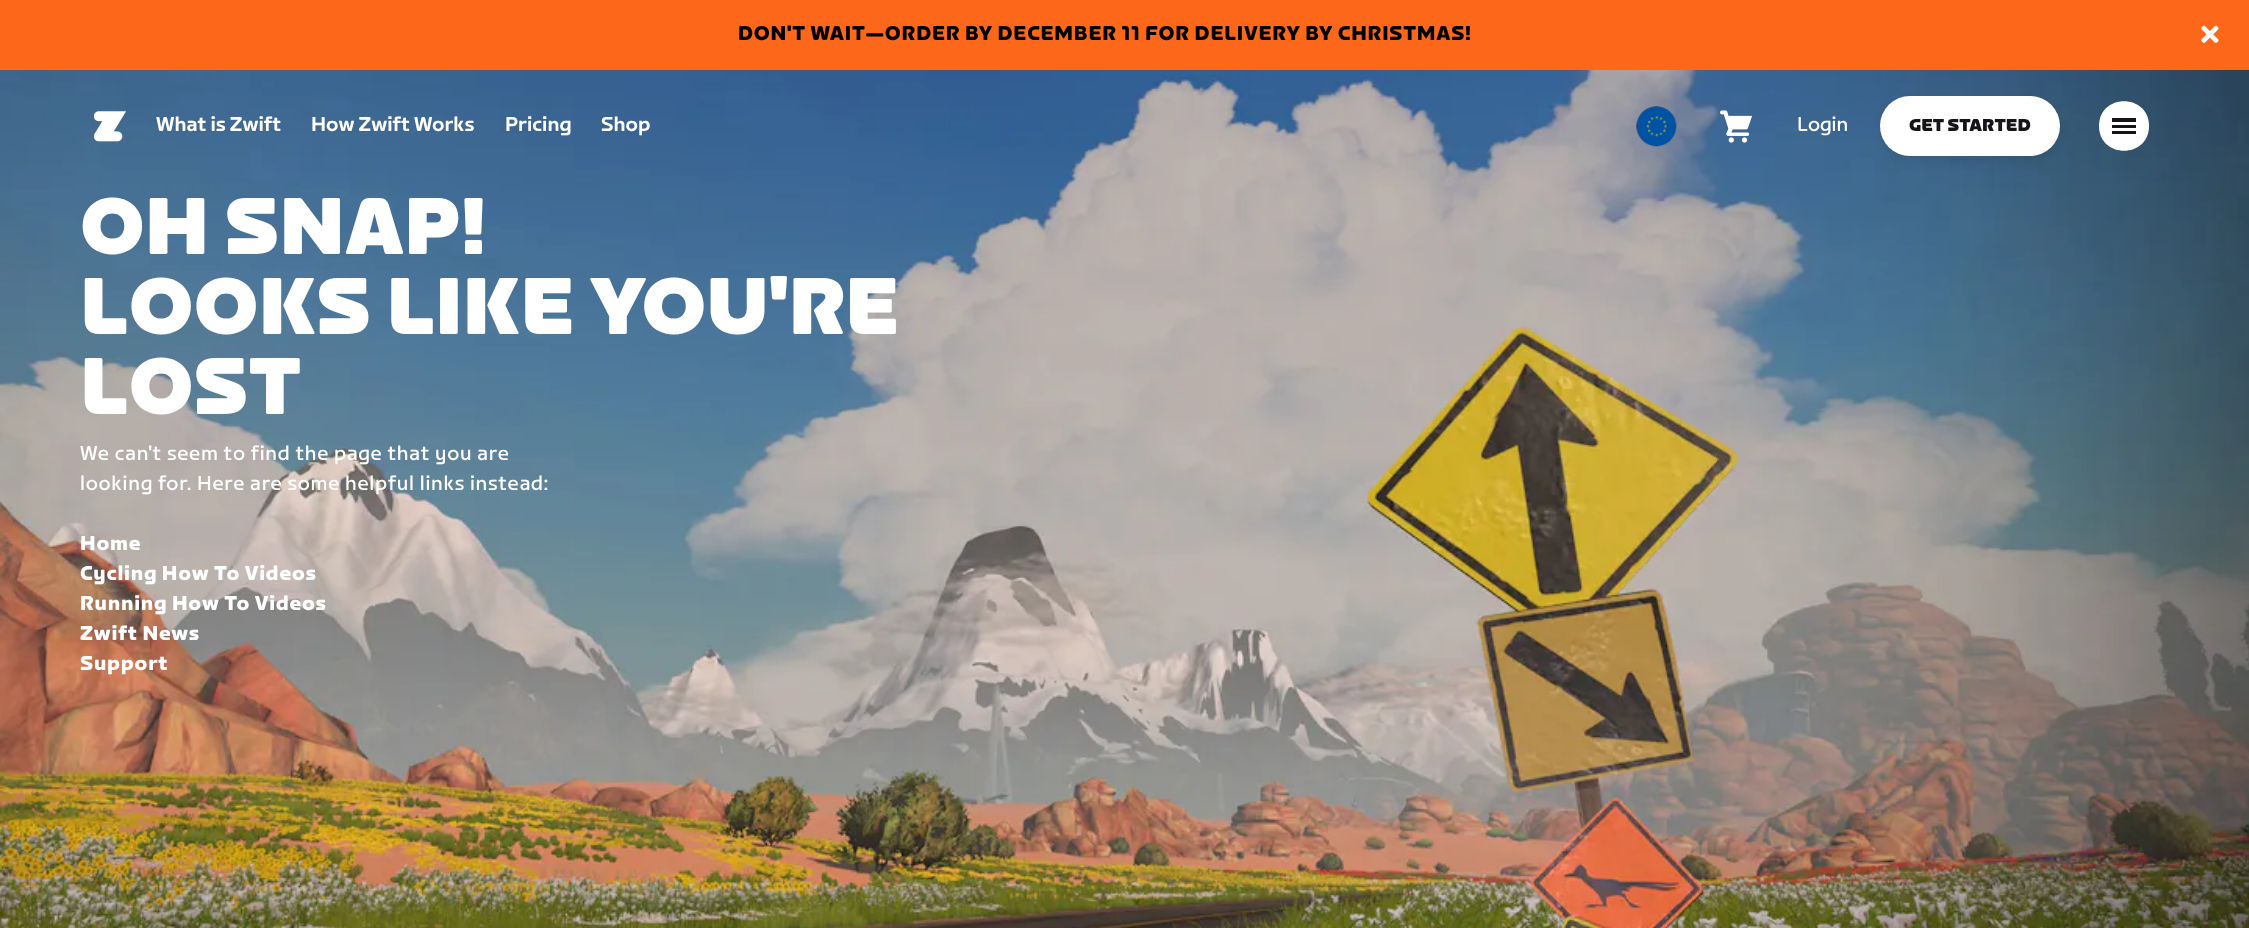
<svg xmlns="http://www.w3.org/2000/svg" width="2249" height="928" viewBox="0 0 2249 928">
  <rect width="100%" height="100%" fill="#fff"/>
  <path d="M0 0h2249v70H0z" fill="#fc6719"/>
  <image x="2201" y="25" width="18" height="18" href="img/1.png"/>
  <image x="0" y="70" width="2249" height="858" href="img/5.png"/>
  <image x="94" y="111" width="32" height="31" href="img/2.png"/>
  <image x="1636" y="106" width="41" height="41" href="img/3.png"/>
  <image x="1720" y="110" width="32" height="33" href="img/4.png"/>
  <rect x="1880" y="101" width="180" height="59" rx="29.5" fill="#00000014" filter="blur(5px)"/>
  <rect x="1880" y="96" width="180" height="60" rx="30" fill="#fff"/>
  <path d="M2099 126C2099 93 2149 93 2149 126C2149 159 2099 159 2099 126Z" fill="#fff"/>
  <path d="M2112 118h24v4H2112z" fill="#141518"/>
  <path d="M2112 125h24v3H2112z" fill="#141518"/>
  <path d="M2112 131h24v3H2112z" fill="#141518"/>
  <text x="738" y="40" font-family="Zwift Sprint" font-size="20" font-weight="bold" letter-spacing="0.75" fill="#000">DON'T WAIT—ORDER BY DECEMBER 11 FOR DELIVERY BY CHRISTMAS!</text>
  <g font-family="Zwift Sprint" font-size="20" font-weight="500" fill="#fff">
    <text x="156" y="131">What is Zwift</text>
    <text x="311" y="131">How Zwift Works</text>
    <text x="505" y="131">Pricing</text>
    <text x="601" y="131">Shop</text>
  </g>
  <text x="1797" y="131" font-family="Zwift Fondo" font-size="20" fill="#fff">Login</text>
  <text x="1909" y="131" font-family="Zwift Sprint" font-size="17.25" font-weight="900" fill="#141518">GET STARTED</text>
  <g font-family="Zwift Sprint" font-size="80" font-weight="900" letter-spacing="0.25" fill="#fff">
    <text x="80" y="254">OH SNAP!</text>
    <text x="80" y="334">LOOKS LIKE YOU'RE</text>
    <text x="80" y="414">LOST</text>
  </g>
  <g font-family="Zwift Sprint" font-size="20" letter-spacing="0.75" fill="#fff">
    <text x="80" y="460">We can't seem to find the page that you are</text>
    <text x="80" y="490">looking for. Here are some helpful links instead:</text>
  </g>
  <g font-family="Zwift Sprint" font-size="20" font-weight="bold" letter-spacing="0.75" fill="#fff">
    <text x="80" y="550">Home</text>
    <text x="80" y="580">Cycling How To Videos</text>
    <text x="80" y="610">Running How To Videos</text>
    <text x="80" y="640">Zwift News</text>
    <text x="80" y="670">Support</text>
  </g>
</svg>
